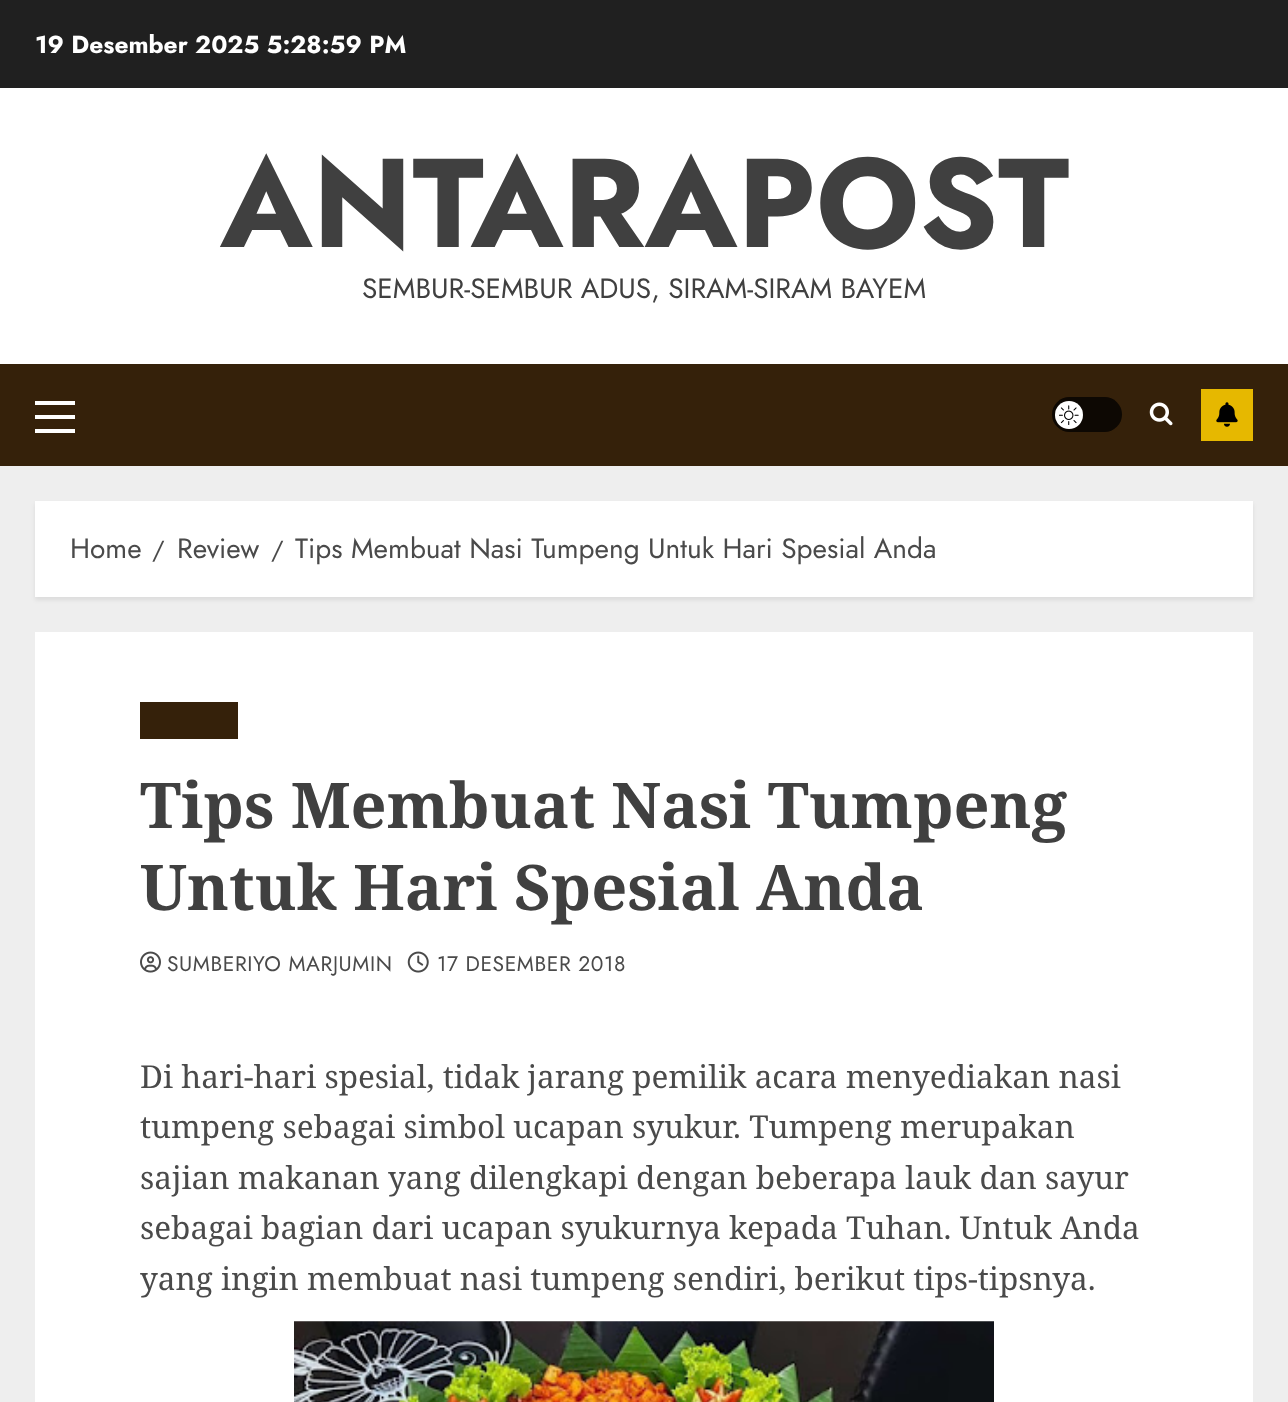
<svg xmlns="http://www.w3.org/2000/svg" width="1288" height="1402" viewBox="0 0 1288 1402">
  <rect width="100%" height="100%" fill="#eee"/>
  <path d="M0 0h1288v88H0z" fill="#202020"/>
  <path d="M0 88h1288v276H0z" fill="#fff"/>
  <path d="M0 364h1288v102H0z" fill="#35210a"/>
  <path d="M35 415h40v4H35z" fill="#fff"/>
  <path d="M35 401h40v4H35z" fill="#fff"/>
  <path d="M35 429h40v4H35z" fill="#fff"/>
  <rect x="1052" y="397" width="70" height="35" rx="17.5" fill="#0d0803"/>
  <circle cx="1069" cy="415" r="14" fill="#fff"/>
  <image x="1059" y="405" width="20" height="20" href="img/1.png"/>
  <image x="1149" y="402" width="24" height="24" href="img/2.png"/>
  <path d="M1201 389h52v52H1201z" fill="#e6b800"/>
  <image x="1216" y="402" width="22" height="25" href="img/3.png"/>
  <path d="M35 504h1218v96H35z" fill="#00000014" filter="blur(2px)"/>
  <path d="M35 501h1218v96H35z" fill="#fff"/>
  <path d="M35 632h1218v770H35z" fill="#fff"/>
  <path d="M140 702h98v37H140z" fill="#35210a"/>
  <image x="140" y="951" width="21" height="22" href="img/4.png"/>
  <image x="407" y="951" width="22" height="22" href="img/5.png"/>
  <image x="294" y="1321" width="700" height="81" href="img/6.png"/>
  <text x="35" y="53" font-family="Jost" font-size="24.5" font-weight="bold" fill="#fff">19 Desember 2025 5:28:59 PM</text>
  <text x="220" y="247" font-family="Jost" font-size="126" font-weight="bold" fill="#404040">ANTARAPOST</text>
  <text x="362" y="298" font-family="Jost" font-size="28" fill="#404040">SEMBUR-SEMBUR ADUS, SIRAM-SIRAM BAYEM</text>
  <text x="70" y="558" font-family="Jost" font-size="28" fill="#4a4a4a">Home</text>
  <text x="152" y="558" font-family="Jost" font-size="24.5" fill="#4a4a4a">/</text>
  <text x="177" y="558" font-family="Jost" font-size="28" fill="#4a4a4a">Review</text>
  <text x="271" y="558" font-family="Jost" font-size="24.5" fill="#4a4a4a">/</text>
  <text x="295" y="558" font-family="Jost" font-size="28" fill="#4a4a4a">Tips Membuat Nasi Tumpeng Untuk Hari Spesial Anda</text>
  <g font-family="Noto Serif" font-size="63" font-weight="bold" fill="#404040">
    <text x="140" y="828">Tips Membuat Nasi Tumpeng</text>
    <text x="140" y="910">Untuk Hari Spesial Anda</text>
  </g>
  <g font-family="Jost" font-size="21" letter-spacing="0.6" fill="#4a4a4a">
    <text x="167" y="971">SUMBERIYO MARJUMIN</text>
    <text x="437" y="971">17 DESEMBER 2018</text>
  </g>
  <g font-family="Noto Serif" font-size="31.5" fill="#4a4a4a">
    <text x="140" y="1088">Di hari-hari spesial, tidak jarang pemilik acara menyediakan nasi</text>
    <text x="140" y="1138">tumpeng sebagai simbol ucapan syukur. Tumpeng merupakan</text>
    <text x="140" y="1189">sajian makanan yang dilengkapi dengan beberapa lauk dan sayur</text>
    <text x="140" y="1239">sebagai bagian dari ucapan syukurnya kepada Tuhan. Untuk Anda</text>
    <text x="140" y="1290">yang ingin membuat nasi tumpeng sendiri, berikut tips-tipsnya.</text>
  </g>
</svg>
